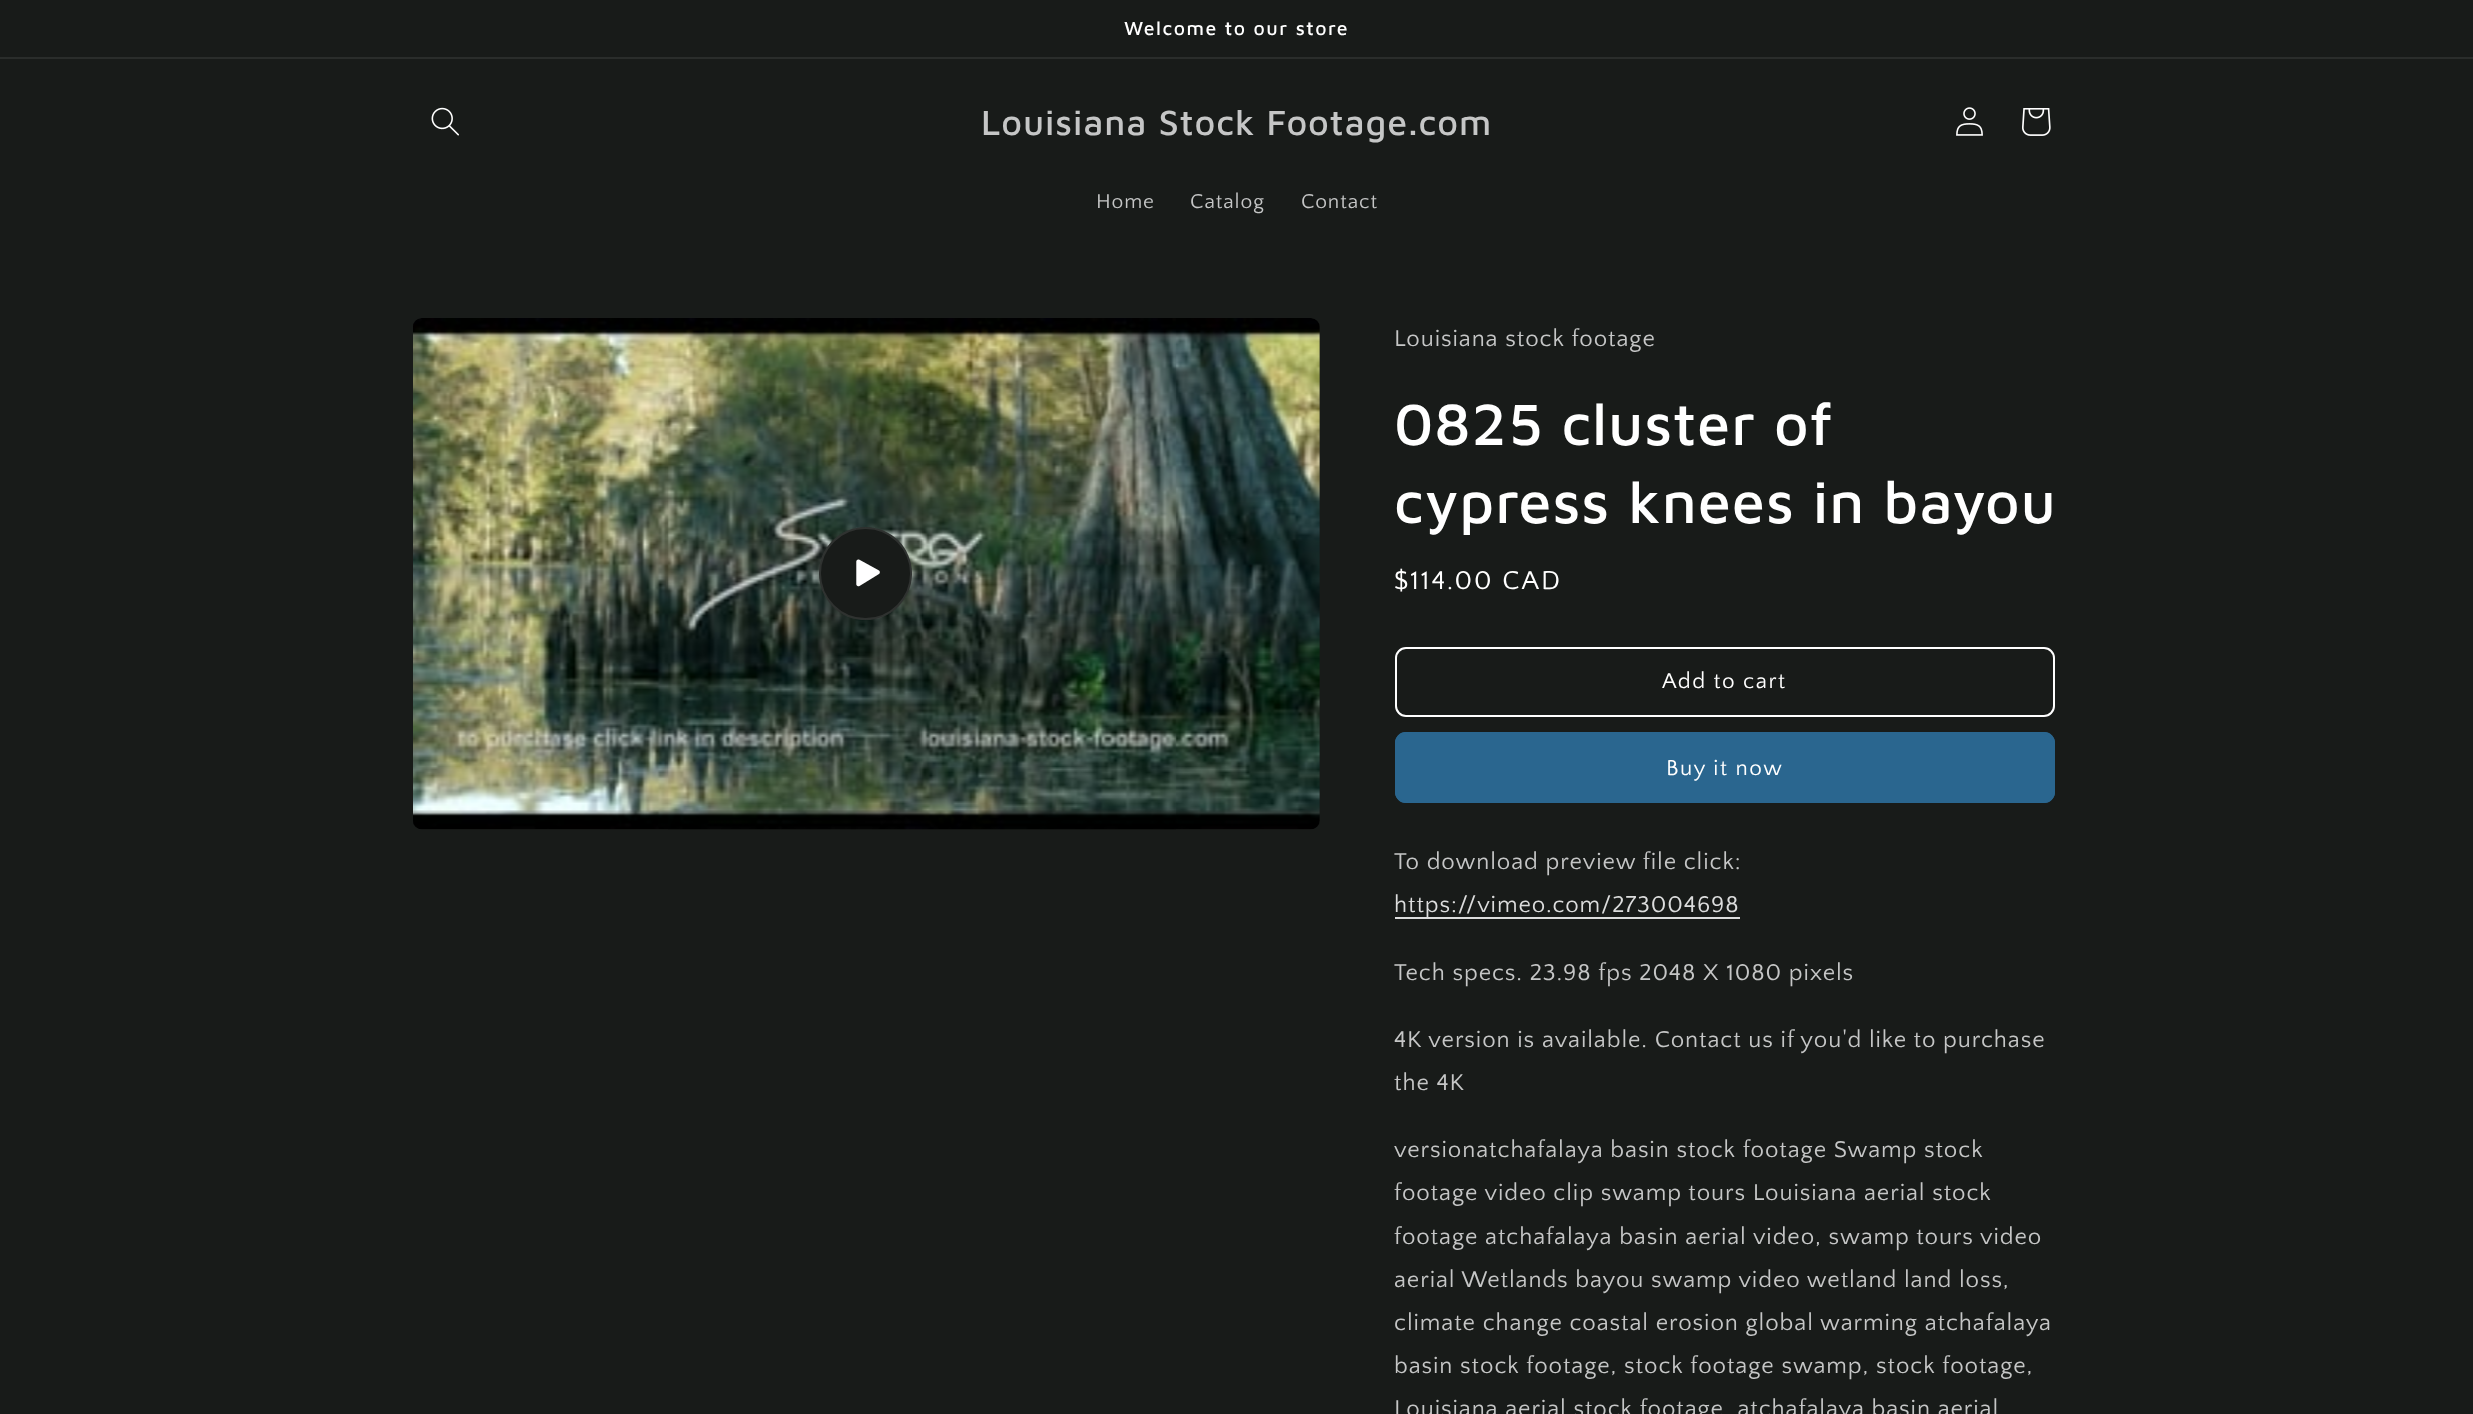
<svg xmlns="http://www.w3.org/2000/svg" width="2473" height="1414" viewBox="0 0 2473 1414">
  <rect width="100%" height="100%" fill="#181b19"/>
  <path d="M0 57h2473v2H0z" fill="#2a2d2b"/>
  <image x="431" y="107" width="28" height="29" href="img/1.png"/>
  <image x="1956" y="107" width="27" height="29" href="img/2.png"/>
  <image x="2022" y="108" width="29" height="28" href="img/3.png"/>
  <image x="413" y="318" width="907" height="512" href="img/4.png"/>
  <circle cx="865.5" cy="573.5" r="46.5" fill="#181b19"/>
  <circle cx="865.5" cy="573.5" r="45.5" fill="none" stroke="#ffffff1a" stroke-width="2"/>
  <image x="856" y="559" width="24" height="28" href="img/5.png"/>
  <rect x="1396" y="648" width="658" height="68" rx="10" fill="none" stroke="#fff" stroke-width="2"/>
  <rect x="1395" y="732" width="660" height="71" rx="11" fill="#2a668f"/>
  <rect x="1396" y="733" width="658" height="69" rx="10" fill="none" stroke="#2a668f" stroke-width="2"/>
  <path d="M1395 917h345v2H1395z" fill="#dcdddd"/>
  <text x="1124" y="35" font-family="Maven Pro" font-size="19.5" font-weight="500" letter-spacing="1.5" fill="#fff">Welcome to our store</text>
  <text x="981" y="135" font-family="Maven Pro" font-size="36" font-weight="500" letter-spacing="0.9" fill="#c5c6c6">Louisiana Stock Footage.com</text>
  <g font-family="Quattrocento Sans" font-size="21" letter-spacing="0.9" fill="#c5c6c6">
    <text x="1096" y="208">Home</text>
    <text x="1190" y="208">Catalog</text>
    <text x="1301" y="208">Contact</text>
  </g>
  <text x="1394" y="346" font-family="Quattrocento Sans" font-size="24" letter-spacing="0.9" fill="#c5c6c6">Louisiana stock footage</text>
  <g font-family="Maven Pro" font-size="60" font-weight="500" letter-spacing="0.9" fill="#fff">
    <text x="1394" y="445">0825 cluster of</text>
    <text x="1394" y="523">cypress knees in bayou</text>
  </g>
  <text x="1394" y="589" font-family="Quattrocento Sans" font-size="27" letter-spacing="2" fill="#fff">$114.00 CAD</text>
  <g font-family="Quattrocento Sans" font-size="22.5" letter-spacing="1.5" fill="#fff">
    <text x="1662" y="688">Add to cart</text>
    <text x="1666" y="775">Buy it now</text>
  </g>
  <text x="1394" y="869" font-family="Quattrocento Sans" font-size="24" letter-spacing="0.9" fill="#c5c6c6">To download preview file click:</text>
  <text x="1394" y="912" font-family="Quattrocento Sans" font-size="24" letter-spacing="0.9" fill="#dcdddd">https://vimeo.com/273004698</text>
  <g font-family="Quattrocento Sans" font-size="24" letter-spacing="0.9" fill="#c5c6c6">
    <text x="1394" y="980">Tech specs. 23.98 fps 2048 X 1080 pixels</text>
    <text x="1394" y="1047">4K version is available. Contact us if you'd like to purchase</text>
    <text x="1394" y="1090">the 4K</text>
    <text x="1394" y="1157">versionatchafalaya basin stock footage Swamp stock</text>
    <text x="1394" y="1200">footage video clip swamp tours Louisiana aerial stock</text>
    <text x="1394" y="1244">footage atchafalaya basin aerial video, swamp tours video</text>
    <text x="1394" y="1287">aerial Wetlands bayou swamp video wetland land loss,</text>
    <text x="1394" y="1330">climate change coastal erosion global warming atchafalaya</text>
    <text x="1394" y="1373">basin stock footage, stock footage swamp, stock footage,</text>
    <text x="1394" y="1416">Louisiana aerial stock footage, atchafalaya basin aerial</text>
  </g>
</svg>
